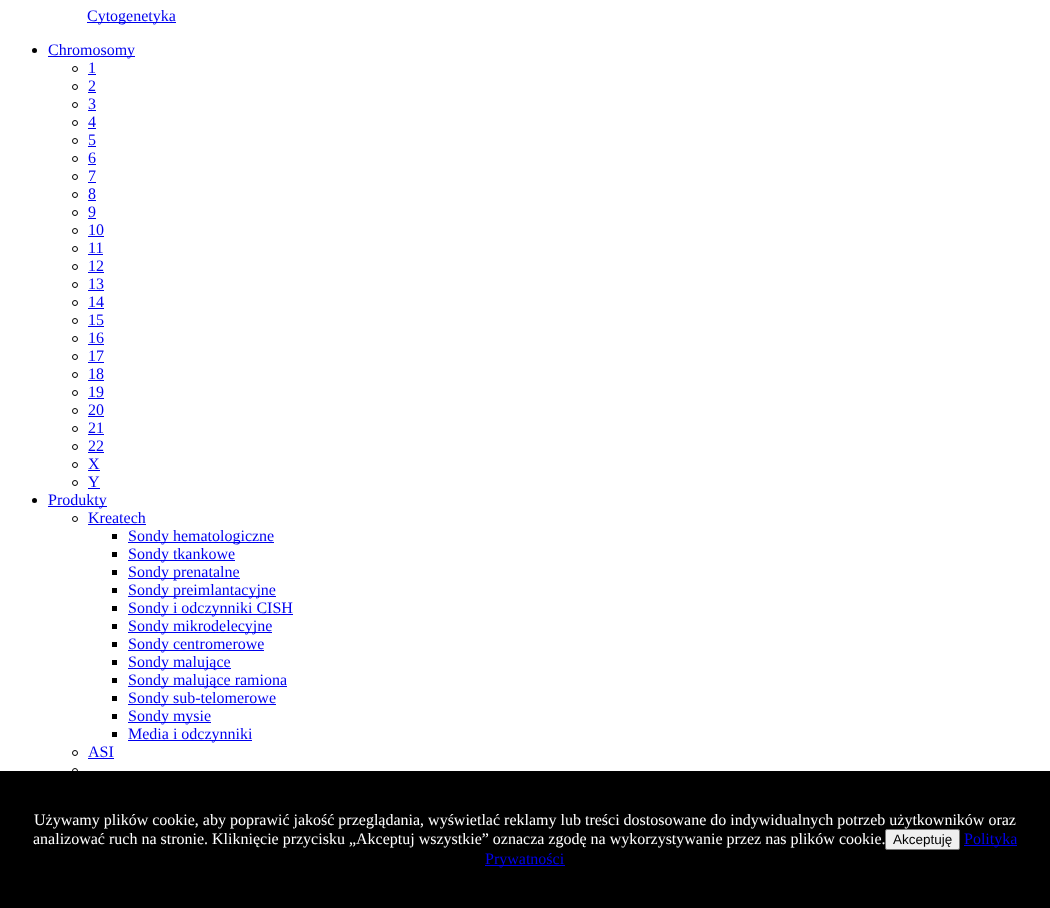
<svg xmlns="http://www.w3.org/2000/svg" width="1050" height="908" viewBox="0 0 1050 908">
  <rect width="100%" height="100%" fill="#fff"/>
  <path d="M87 22h89v1H87z" fill="#00e"/>
  <circle cx="34.5" cy="50.5" r="2.5" fill="#000"/>
  <path d="M48 56h87v1H48z" fill="#00e"/>
  <circle cx="75" cy="69" r="2.5" fill="none" stroke="#000"/>
  <path d="M88 74h8v1H88z" fill="#00e"/>
  <circle cx="75" cy="87" r="2.5" fill="none" stroke="#000"/>
  <path d="M88 92h8v1H88z" fill="#00e"/>
  <circle cx="75" cy="105" r="2.5" fill="none" stroke="#000"/>
  <path d="M88 110h8v1H88z" fill="#00e"/>
  <circle cx="75" cy="123" r="2.5" fill="none" stroke="#000"/>
  <path d="M88 128h8v1H88z" fill="#00e"/>
  <circle cx="75" cy="141" r="2.5" fill="none" stroke="#000"/>
  <path d="M88 146h8v1H88z" fill="#00e"/>
  <circle cx="75" cy="159" r="2.5" fill="none" stroke="#000"/>
  <path d="M88 164h8v1H88z" fill="#00e"/>
  <circle cx="75" cy="177" r="2.5" fill="none" stroke="#000"/>
  <path d="M88 182h8v1H88z" fill="#00e"/>
  <circle cx="75" cy="195" r="2.5" fill="none" stroke="#000"/>
  <path d="M88 200h8v1H88z" fill="#00e"/>
  <circle cx="75" cy="213" r="2.5" fill="none" stroke="#000"/>
  <path d="M88 218h8v1H88z" fill="#00e"/>
  <circle cx="75" cy="231" r="2.5" fill="none" stroke="#000"/>
  <path d="M88 236h16v1H88z" fill="#00e"/>
  <circle cx="75" cy="249" r="2.5" fill="none" stroke="#000"/>
  <path d="M88 254h15v1H88z" fill="#00e"/>
  <circle cx="75" cy="267" r="2.5" fill="none" stroke="#000"/>
  <path d="M88 272h16v1H88z" fill="#00e"/>
  <circle cx="75" cy="285" r="2.5" fill="none" stroke="#000"/>
  <path d="M88 290h16v1H88z" fill="#00e"/>
  <circle cx="75" cy="303" r="2.5" fill="none" stroke="#000"/>
  <path d="M88 308h16v1H88z" fill="#00e"/>
  <circle cx="75" cy="321" r="2.5" fill="none" stroke="#000"/>
  <path d="M88 326h16v1H88z" fill="#00e"/>
  <circle cx="75" cy="339" r="2.5" fill="none" stroke="#000"/>
  <path d="M88 344h16v1H88z" fill="#00e"/>
  <circle cx="75" cy="357" r="2.5" fill="none" stroke="#000"/>
  <path d="M88 362h16v1H88z" fill="#00e"/>
  <circle cx="75" cy="375" r="2.5" fill="none" stroke="#000"/>
  <path d="M88 380h16v1H88z" fill="#00e"/>
  <circle cx="75" cy="393" r="2.5" fill="none" stroke="#000"/>
  <path d="M88 398h16v1H88z" fill="#00e"/>
  <circle cx="75" cy="411" r="2.5" fill="none" stroke="#000"/>
  <path d="M88 416h16v1H88z" fill="#00e"/>
  <circle cx="75" cy="429" r="2.5" fill="none" stroke="#000"/>
  <path d="M88 434h16v1H88z" fill="#00e"/>
  <circle cx="75" cy="447" r="2.5" fill="none" stroke="#000"/>
  <path d="M88 452h16v1H88z" fill="#00e"/>
  <circle cx="75" cy="465" r="2.5" fill="none" stroke="#000"/>
  <path d="M88 470h12v1H88z" fill="#00e"/>
  <circle cx="75" cy="483" r="2.5" fill="none" stroke="#000"/>
  <path d="M88 488h12v1H88z" fill="#00e"/>
  <circle cx="34.5" cy="500.5" r="2.5" fill="#000"/>
  <path d="M48 506h59v1H48z" fill="#00e"/>
  <circle cx="75" cy="519" r="2.5" fill="none" stroke="#000"/>
  <path d="M88 524h58v1H88z" fill="#00e"/>
  <path d="M112 534h5v5H112z" fill="#000"/>
  <path d="M128 542h146v1H128z" fill="#00e"/>
  <path d="M112 552h5v5H112z" fill="#000"/>
  <path d="M128 560h107v1H128z" fill="#00e"/>
  <path d="M112 570h5v5H112z" fill="#000"/>
  <path d="M128 578h112v1H128z" fill="#00e"/>
  <path d="M112 588h5v5H112z" fill="#000"/>
  <path d="M128 596h148v1H128z" fill="#00e"/>
  <path d="M112 606h5v5H112z" fill="#000"/>
  <path d="M128 614h165v1H128z" fill="#00e"/>
  <path d="M112 624h5v5H112z" fill="#000"/>
  <path d="M128 632h144v1H128z" fill="#00e"/>
  <path d="M112 642h5v5H112z" fill="#000"/>
  <path d="M128 650h136v1H128z" fill="#00e"/>
  <path d="M112 660h5v5H112z" fill="#000"/>
  <path d="M128 668h103v1H128z" fill="#00e"/>
  <path d="M112 678h5v5H112z" fill="#000"/>
  <path d="M128 686h159v1H128z" fill="#00e"/>
  <path d="M112 696h5v5H112z" fill="#000"/>
  <path d="M128 704h148v1H128z" fill="#00e"/>
  <path d="M112 714h5v5H112z" fill="#000"/>
  <path d="M128 722h83v1H128z" fill="#00e"/>
  <path d="M112 732h5v5H112z" fill="#000"/>
  <path d="M128 740h124v1H128z" fill="#00e"/>
  <circle cx="75" cy="753" r="2.5" fill="none" stroke="#000"/>
  <path d="M88 758h26v1H88z" fill="#00e"/>
  <circle cx="75" cy="771" r="2.5" fill="none" stroke="#000"/>
  <path d="M0 771h1050v137H0z" fill="#000"/>
  <rect x="885.5" y="829.5" width="74" height="20" rx="1.5" fill="#efefef" stroke="#767676"/>
  <path d="M964 845h53v1H964z" fill="#00e"/>
  <path d="M485 865h80v1H485z" fill="#00e"/>
  <g font-family="Liberation Serif" font-size="16" fill="#00e">
    <text x="87" y="21">Cytogenetyka</text>
    <text x="48" y="55">Chromosomy</text>
    <text x="88" y="73">1</text>
    <text x="88" y="91">2</text>
    <text x="88" y="109">3</text>
    <text x="88" y="127">4</text>
    <text x="88" y="145">5</text>
    <text x="88" y="163">6</text>
    <text x="88" y="181">7</text>
    <text x="88" y="199">8</text>
    <text x="88" y="217">9</text>
    <text x="88" y="235">10</text>
    <text x="88" y="253">11</text>
    <text x="88" y="271">12</text>
    <text x="88" y="289">13</text>
    <text x="88" y="307">14</text>
    <text x="88" y="325">15</text>
    <text x="88" y="343">16</text>
    <text x="88" y="361">17</text>
    <text x="88" y="379">18</text>
    <text x="88" y="397">19</text>
    <text x="88" y="415">20</text>
    <text x="88" y="433">21</text>
    <text x="88" y="451">22</text>
    <text x="88" y="469">X</text>
    <text x="88" y="487">Y</text>
    <text x="48" y="505">Produkty</text>
    <text x="88" y="523">Kreatech</text>
    <text x="128" y="541">Sondy hematologiczne</text>
    <text x="128" y="559">Sondy tkankowe</text>
    <text x="128" y="577">Sondy prenatalne</text>
    <text x="128" y="595">Sondy preimlantacyjne</text>
    <text x="128" y="613">Sondy i odczynniki CISH</text>
    <text x="128" y="631">Sondy mikrodelecyjne</text>
    <text x="128" y="649">Sondy centromerowe</text>
    <text x="128" y="667">Sondy malujące</text>
    <text x="128" y="685">Sondy malujące ramiona</text>
    <text x="128" y="703">Sondy sub-telomerowe</text>
    <text x="128" y="721">Sondy mysie</text>
    <text x="128" y="739">Media i odczynniki</text>
    <text x="88" y="757">ASI</text>
  </g>
  <g font-family="Liberation Serif" font-size="16" fill="#fff">
    <text x="34" y="825">Używamy plików cookie, aby poprawić jakość przeglądania, wyświetlać reklamy lub treści dostosowane do indywidualnych potrzeb użytkowników oraz</text>
    <text x="33" y="844">analizować ruch na stronie. Kliknięcie przycisku „Akceptuj wszystkie” oznacza zgodę na wykorzystywanie przez nas plików cookie.</text>
  </g>
  <text x="893" y="844" font-family="Liberation Sans" font-size="13.5" fill="#000">Akceptuję</text>
  <g font-family="Liberation Serif" font-size="16" fill="#00e">
    <text x="964" y="844">Polityka</text>
    <text x="485" y="864">Prywatności</text>
  </g>
</svg>
